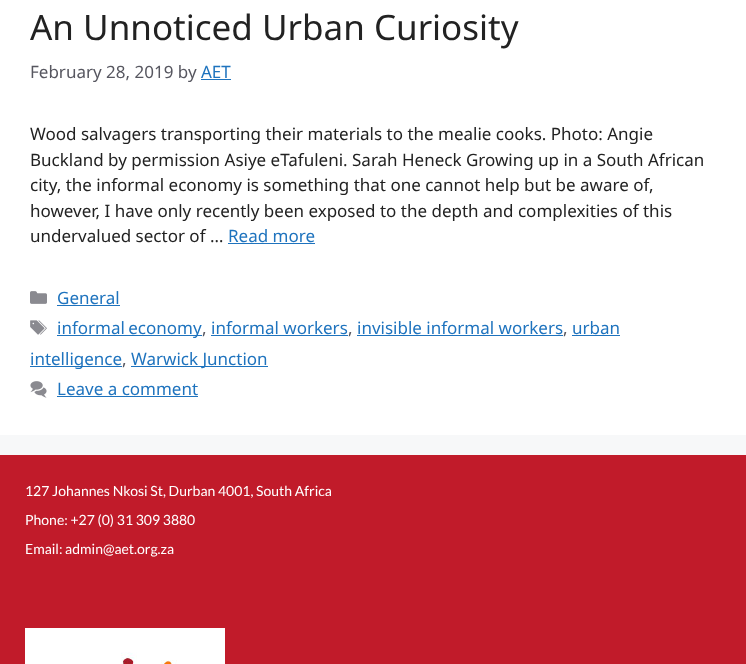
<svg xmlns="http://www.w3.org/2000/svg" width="746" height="664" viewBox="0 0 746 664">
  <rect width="100%" height="100%" fill="#f7f8f9"/>
  <path d="M0 0h746v435H0z" fill="#fff"/>
  <path d="M201 79h30v1H201z" fill="#1e73be"/>
  <path d="M228 243h87v1H228z" fill="#1e73be"/>
  <image x="30" y="291" width="17" height="13" href="img/1.png"/>
  <path d="M57 305h63v1H57z" fill="#1e73be"/>
  <image x="30" y="320" width="17" height="15" href="img/2.png"/>
  <path d="M57 335h145v1H57z" fill="#1e73be"/>
  <path d="M211 335h137v1H211z" fill="#1e73be"/>
  <path d="M357 335h206v1H357z" fill="#1e73be"/>
  <path d="M572 335h48v1H572z" fill="#1e73be"/>
  <path d="M30 366h92v1H30z" fill="#1e73be"/>
  <path d="M131 366h137v1H131z" fill="#1e73be"/>
  <image x="30" y="381" width="17" height="17" href="img/3.png"/>
  <path d="M57 396h141v1H57z" fill="#1e73be"/>
  <path d="M0 455h746v209H0z" fill="#c11b2a"/>
  <image x="25" y="628" width="200" height="36" href="img/4.png"/>
  <text x="30" y="40" font-family="Noto Sans" font-size="35" fill="#222">An Unnoticed Urban Curiosity</text>
  <text x="30" y="78" font-family="Noto Sans" font-size="17" fill="#575760">February 28, 2019 by</text>
  <text x="201" y="78" font-family="Noto Sans" font-size="17" fill="#1e73be">AET</text>
  <g font-family="Noto Sans" font-size="17" fill="#222">
    <text x="30" y="140">Wood salvagers transporting their materials to the mealie cooks. Photo: Angie</text>
    <text x="30" y="166">Buckland by permission Asiye eTafuleni. Sarah Heneck Growing up in a South African</text>
    <text x="30" y="191">city, the informal economy is something that one cannot help but be aware of,</text>
    <text x="30" y="217">however, I have only recently been exposed to the depth and complexities of this</text>
    <text x="30" y="242">undervalued sector of …</text>
  </g>
  <g font-family="Noto Sans" font-size="17" fill="#1e73be">
    <text x="228" y="242">Read more</text>
    <text x="57" y="304">General</text>
    <text x="57" y="334" word-spacing="-1">informal economy</text>
  </g>
  <text x="202" y="334" font-family="Noto Sans" font-size="17" fill="#575760">,</text>
  <text x="211" y="334" font-family="Noto Sans" font-size="17" fill="#1e73be">informal workers</text>
  <text x="348" y="334" font-family="Noto Sans" font-size="17" fill="#575760">,</text>
  <text x="357" y="334" font-family="Noto Sans" font-size="17" fill="#1e73be">invisible informal workers</text>
  <text x="563" y="334" font-family="Noto Sans" font-size="17" fill="#575760">,</text>
  <g font-family="Noto Sans" font-size="17" fill="#1e73be">
    <text x="572" y="334">urban</text>
    <text x="30" y="365">intelligence</text>
  </g>
  <text x="122" y="365" font-family="Noto Sans" font-size="17" fill="#575760">,</text>
  <g font-family="Noto Sans" font-size="17" fill="#1e73be">
    <text x="131" y="365">Warwick Junction</text>
    <text x="57" y="395">Leave a comment</text>
  </g>
  <g font-family="Lato" font-size="14" fill="#fff">
    <text x="25" y="496">127 Johannes Nkosi St, Durban 4001, South Africa</text>
    <text x="25" y="525">Phone: +27 (0) 31 309 3880</text>
    <text x="25" y="554">Email: admin@aet.org.za</text>
  </g>
</svg>
